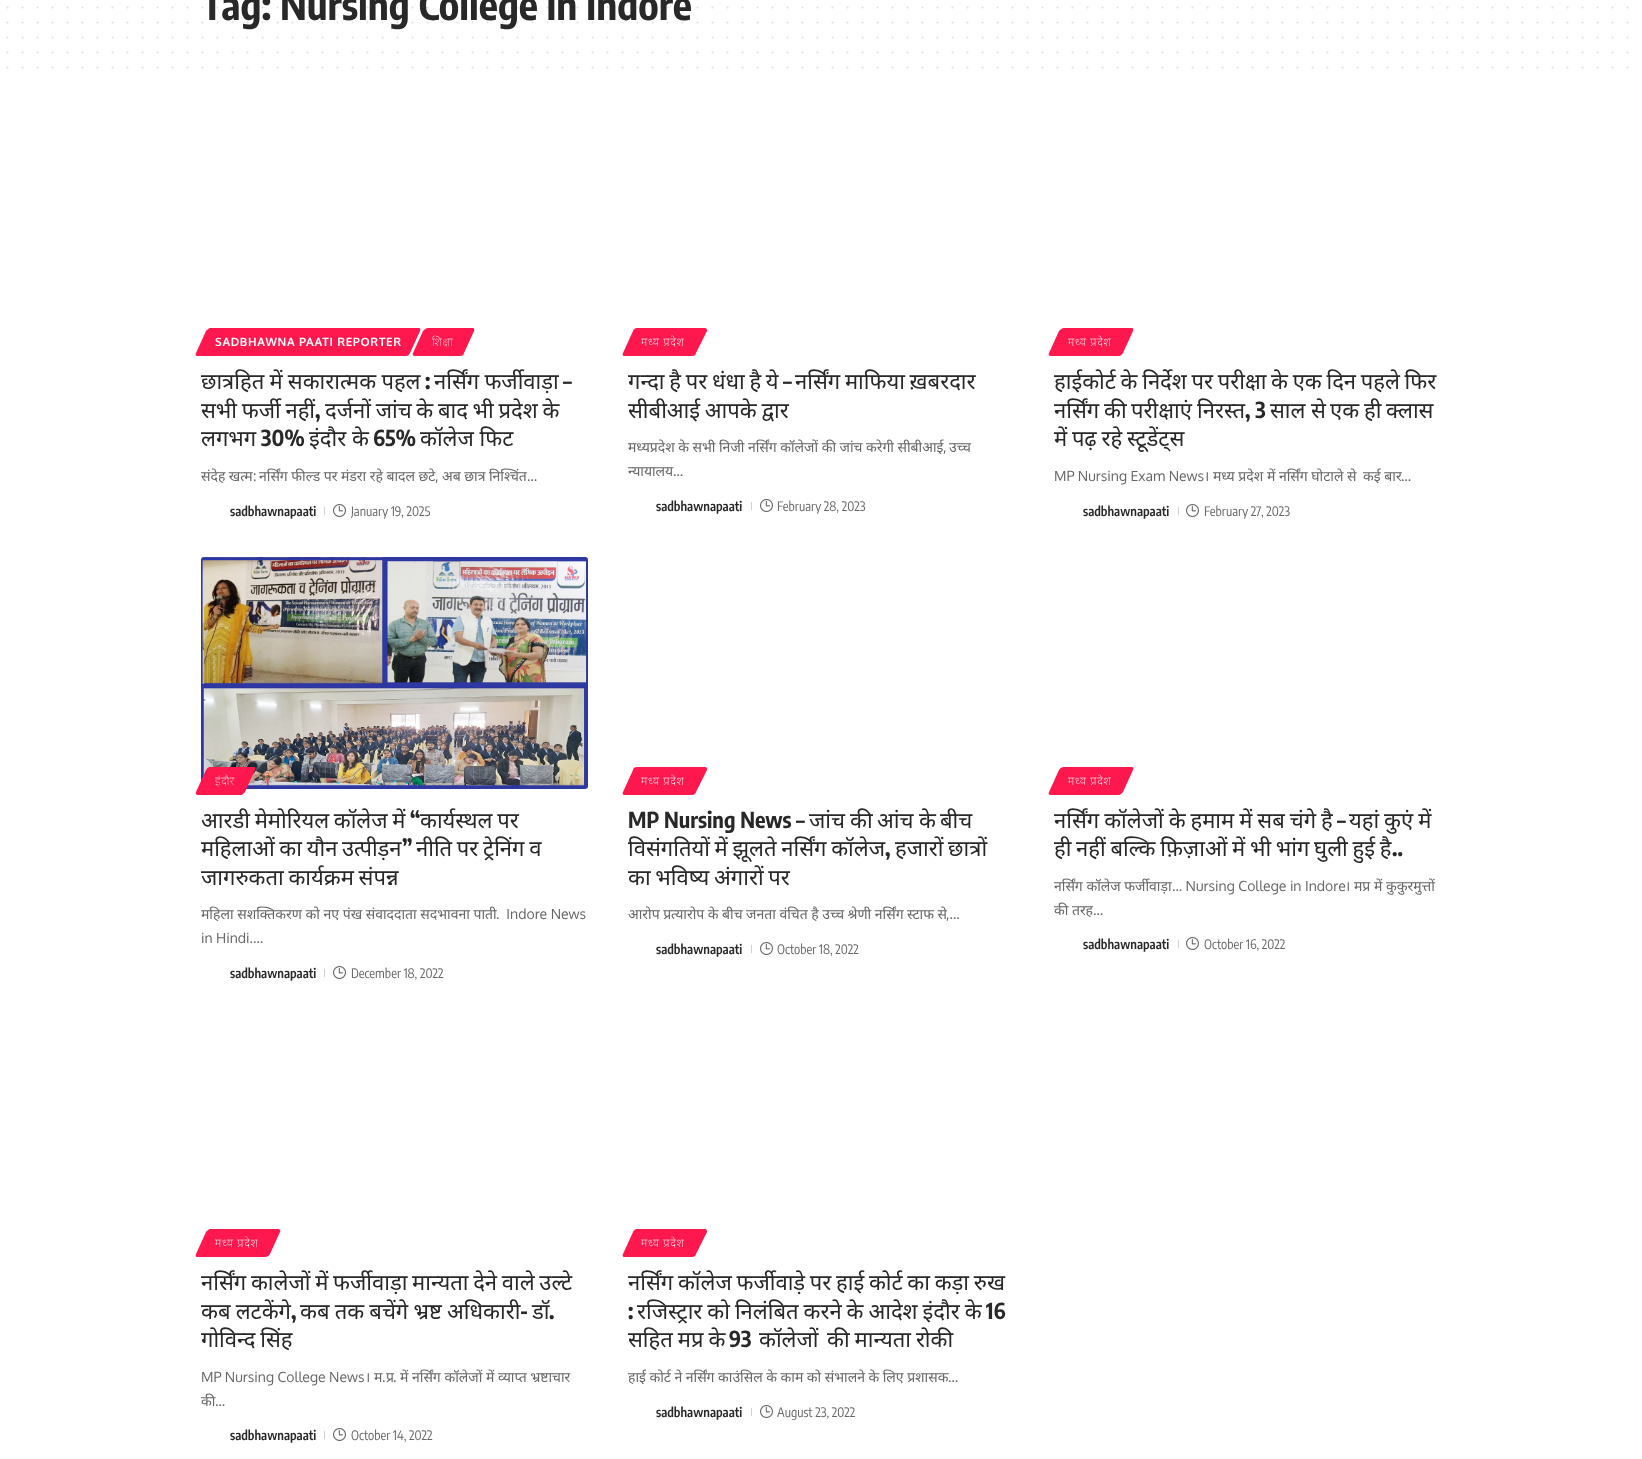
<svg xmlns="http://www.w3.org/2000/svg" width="1642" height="1459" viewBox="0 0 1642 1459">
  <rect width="100%" height="100%" fill="#fff"/>
  <path d="M7.5 37.5H1627.7" fill="none" stroke="#dfdfdf" stroke-width="2" stroke-linecap="round" stroke-dasharray="0 15"/>
  <path d="M7.5 52.5H1627.7" fill="none" stroke="#dfdfdf" stroke-width="2" stroke-linecap="round" stroke-dasharray="0 15"/>
  <path d="M7.5 67.5H1627.7" fill="none" stroke="#dfdfdf" stroke-width="2" stroke-linecap="round" stroke-dasharray="0 15"/>
  <path d="M210 328H419C420 328 421 330 420 331L410 353C409 355 408 356 406 356H198C196 356 195 355 196 353L206 331C207 330 209 328 210 328Z" fill="#ff184e"/>
  <path d="M428 328H473C474 328 475 330 474 331L464 353C464 355 462 356 460 356H415C413 356 412 355 413 353L423 331C424 330 426 328 428 328Z" fill="#ff184e"/>
  <path d="M324 507h1v8H324z" fill="#d1d1d1"/>
  <image x="333" y="504" width="13" height="13" href="img/1.png"/>
  <path d="M637 328H705C707 328 707 330 707 331L696 353C696 355 694 356 692 356H624C623 356 622 355 623 353L633 331C633 330 635 328 637 328Z" fill="#ff184e"/>
  <path d="M751 502h1v8H751z" fill="#d1d1d1"/>
  <image x="760" y="499" width="13" height="13" href="img/1.png"/>
  <path d="M1064 328H1132C1133 328 1134 330 1133 331L1123 353C1122 355 1120 356 1119 356H1051C1049 356 1048 355 1049 353L1059 331C1060 330 1062 328 1064 328Z" fill="#ff184e"/>
  <path d="M1178 507h1v8H1178z" fill="#d1d1d1"/>
  <image x="1186" y="504" width="13" height="13" href="img/1.png"/>
  <image x="201" y="557" width="387" height="232" href="img/2.png"/>
  <path d="M210 767H254C255 767 256 768 255 770L245 792C244 793 242 795 241 795H198C196 795 195 793 196 792L206 770C207 768 209 767 210 767Z" fill="#ff184e"/>
  <path d="M324 969h1v8H324z" fill="#d1d1d1"/>
  <image x="333" y="966" width="13" height="13" href="img/1.png"/>
  <path d="M637 767H705C707 767 707 768 707 770L696 792C696 793 694 795 692 795H624C623 795 622 793 623 792L633 770C633 768 635 767 637 767Z" fill="#ff184e"/>
  <path d="M751 945h1v8H751z" fill="#d1d1d1"/>
  <image x="760" y="942" width="13" height="13" href="img/1.png"/>
  <path d="M1064 767H1132C1133 767 1134 768 1133 770L1123 792C1122 793 1120 795 1119 795H1051C1049 795 1048 793 1049 792L1059 770C1060 768 1062 767 1064 767Z" fill="#ff184e"/>
  <path d="M1178 940h1v8H1178z" fill="#d1d1d1"/>
  <image x="1186" y="937" width="13" height="13" href="img/1.png"/>
  <path d="M210 1229H278C280 1229 281 1231 280 1232L270 1254C269 1256 267 1257 265 1257H198C196 1257 195 1256 196 1254L206 1232C207 1231 209 1229 210 1229Z" fill="#ff184e"/>
  <path d="M324 1431h1v8H324z" fill="#d1d1d1"/>
  <image x="333" y="1428" width="13" height="13" href="img/1.png"/>
  <path d="M637 1229H705C707 1229 707 1231 707 1232L696 1254C696 1256 694 1257 692 1257H624C623 1257 622 1256 623 1254L633 1232C633 1231 635 1229 637 1229Z" fill="#ff184e"/>
  <path d="M751 1408h1v8H751z" fill="#d1d1d1"/>
  <image x="760" y="1405" width="13" height="13" href="img/1.png"/>
  <text x="201" y="20" font-family="Encode Sans Condensed" font-size="40" font-weight="bold" fill="#282828">Tag: Nursing College in Indore</text>
  <path d="M7.5 7.5H1627.7" fill="none" stroke="#28282826" stroke-width="2" stroke-linecap="round" stroke-dasharray="0 15"/>
  <path d="M7.5 22.5H1627.7" fill="none" stroke="#dfdfdf" stroke-width="2" stroke-linecap="round" stroke-dasharray="0 15"/>
  <text x="215" y="346" font-family="Oxygen" font-size="11.5" font-weight="bold" letter-spacing="0.7" fill="#fff">SADBHAWNA PAATI REPORTER</text>
  <text x="432" y="346" font-family="Noto Sans" font-size="11.5" font-weight="100" letter-spacing="0.7" fill="#fff">शिक्षा</text>
  <text x="201" y="389" word-spacing="-0.5" font-family="Noto Sans" font-size="22" fill="#282828">छात्रहित में सकारात्मक पहल</text>
  <text x="425" y="389" font-family="Encode Sans Condensed" font-size="22" font-weight="bold" fill="#282828">:</text>
  <text x="434" y="389" word-spacing="-0.5" font-family="Noto Sans" font-size="22" fill="#282828">नर्सिंग फर्जीवाड़ा</text>
  <text x="563" y="389" font-family="Encode Sans Condensed" font-size="22" font-weight="bold" fill="#282828">–</text>
  <text x="201" y="418" word-spacing="-1" font-family="Noto Sans" font-size="22" fill="#282828">सभी फर्जी नहीं</text>
  <text x="315" y="418" font-family="Encode Sans Condensed" font-size="22" font-weight="bold" fill="#282828">,</text>
  <g font-family="Noto Sans" font-size="22" fill="#282828">
    <text x="325" y="418" word-spacing="-1">दर्जनों जांच के बाद भी प्रदेश के</text>
    <text x="201" y="446">लगभग</text>
  </g>
  <text x="261" y="446" font-family="Encode Sans Condensed" font-size="22" font-weight="bold" fill="#282828">30%</text>
  <text x="309" y="446" font-family="Noto Sans" font-size="22" fill="#282828">इंदौर के</text>
  <text x="373" y="446" font-family="Encode Sans Condensed" font-size="22" font-weight="bold" fill="#282828">65%</text>
  <text x="420" y="446" font-family="Noto Sans" font-size="22" fill="#282828">कॉलेज फिट</text>
  <text x="201" y="481" word-spacing="-0.1" font-family="Noto Sans" font-size="14" fill="#666">संदेह खत्म</text>
  <text x="253" y="481" font-family="Oxygen" font-size="14" fill="#666">:</text>
  <text x="259" y="481" word-spacing="-0.1" font-family="Noto Sans" font-size="14" fill="#666">नर्सिंग फील्ड पर मंडरा रहे बादल छटे</text>
  <text x="435" y="481" font-family="Oxygen" font-size="14" fill="#666">,</text>
  <text x="442" y="481" word-spacing="-0.1" font-family="Noto Sans" font-size="14" fill="#666">अब छात्र निश्चिंत</text>
  <text x="527" y="481" font-family="Oxygen" font-size="14" fill="#666">…</text>
  <text x="230" y="516" font-family="Encode Sans Condensed" font-size="13" font-weight="600" fill="#282828">sadbhawnapaati</text>
  <text x="351" y="516" font-family="Encode Sans Condensed" font-size="13" fill="#666">January 19, 2025</text>
  <text x="641" y="346" font-family="Noto Sans" font-size="11.5" font-weight="200" letter-spacing="0.7" fill="#fff">मध्य प्रदेश</text>
  <text x="628" y="389" word-spacing="-1" font-family="Noto Sans" font-size="22" fill="#282828">गन्दा है पर धंधा है ये</text>
  <text x="783" y="389" font-family="Encode Sans Condensed" font-size="22" font-weight="bold" fill="#282828">–</text>
  <g font-family="Noto Sans" font-size="22" fill="#282828">
    <text x="795" y="389" word-spacing="-1">नर्सिंग माफिया ख़बरदार</text>
    <text x="628" y="418" word-spacing="-1">सीबीआई आपके द्वार</text>
  </g>
  <text x="628" y="452" word-spacing="-0.1" font-family="Noto Sans" font-size="14" fill="#666">मध्यप्रदेश के सभी निजी नर्सिंग कॉलेजों की जांच करेगी सीबीआई</text>
  <text x="943" y="452" font-family="Oxygen" font-size="14" fill="#666">,</text>
  <g font-family="Noto Sans" font-size="14" fill="#666">
    <text x="949" y="452">उच्च</text>
    <text x="628" y="476">न्यायालय</text>
  </g>
  <text x="673" y="476" font-family="Oxygen" font-size="14" fill="#666">…</text>
  <text x="656" y="511" font-family="Encode Sans Condensed" font-size="13" font-weight="600" fill="#282828">sadbhawnapaati</text>
  <text x="777" y="511" font-family="Encode Sans Condensed" font-size="13" fill="#666">February 28, 2023</text>
  <text x="1068" y="346" font-family="Noto Sans" font-size="11.5" font-weight="200" letter-spacing="0.7" fill="#fff">मध्य प्रदेश</text>
  <g font-family="Noto Sans" font-size="22" fill="#282828">
    <text x="1054" y="389" word-spacing="-1">हाईकोर्ट के निर्देश पर परीक्षा के एक दिन पहले फिर</text>
    <text x="1054" y="418">नर्सिंग</text>
    <text x="1104" y="418">की</text>
    <text x="1131" y="418">परीक्षाएं</text>
    <text x="1197" y="418">निरस्त</text>
  </g>
  <text x="1245" y="418" font-family="Encode Sans Condensed" font-size="22" font-weight="bold" fill="#282828">, 3</text>
  <g font-family="Noto Sans" font-size="22" fill="#282828">
    <text x="1270" y="418">साल</text>
    <text x="1311" y="418">से</text>
    <text x="1330" y="418">एक</text>
    <text x="1364" y="418">ही</text>
    <text x="1386" y="418">क्लास</text>
    <text x="1054" y="446" word-spacing="-1">में पढ़ रहे स्टूडेंट्स</text>
  </g>
  <text x="1054" y="481" font-family="Oxygen" font-size="14" fill="#666">MP Nursing Exam News</text>
  <g font-family="Noto Sans" font-size="14" fill="#666">
    <text x="1204" y="481">। मध्य प्रदेश में नर्सिंग घोटाले से</text>
    <text x="1363" y="481">कई बार</text>
  </g>
  <text x="1401" y="481" font-family="Oxygen" font-size="14" fill="#666">…</text>
  <text x="1083" y="516" font-family="Encode Sans Condensed" font-size="13" font-weight="600" fill="#282828">sadbhawnapaati</text>
  <text x="1204" y="516" font-family="Encode Sans Condensed" font-size="13" fill="#666">February 27, 2023</text>
  <text x="215" y="785" font-family="Noto Sans" font-size="11.5" font-weight="100" letter-spacing="0.7" fill="#fff">इंदौर</text>
  <text x="201" y="828" word-spacing="-1" font-family="Noto Sans" font-size="22" fill="#282828">आरडी मेमोरियल कॉलेज में</text>
  <text x="410" y="828" font-family="Encode Sans Condensed" font-size="22" font-weight="bold" fill="#282828">“</text>
  <g font-family="Noto Sans" font-size="22" fill="#282828">
    <text x="420" y="828" word-spacing="-1">कार्यस्थल पर</text>
    <text x="201" y="856" word-spacing="-1">महिलाओं का यौन उत्पीड़न</text>
  </g>
  <text x="402" y="856" font-family="Encode Sans Condensed" font-size="22" font-weight="bold" fill="#282828">”</text>
  <g font-family="Noto Sans" font-size="22" fill="#282828">
    <text x="416" y="856" word-spacing="-1">नीति पर ट्रेनिंग व</text>
    <text x="201" y="885" word-spacing="-1">जागरुकता कार्यक्रम संपन्न</text>
  </g>
  <text x="201" y="919" font-family="Noto Sans" font-size="14" fill="#666">महिला सशक्तिकरण को नए पंख संवाददाता सदभावना पाती</text>
  <g font-family="Oxygen" font-size="14" fill="#666">
    <text x="496" y="919" xml:space="preserve">.  Indore News</text>
    <text x="201" y="943">in Hindi.…</text>
  </g>
  <text x="230" y="978" font-family="Encode Sans Condensed" font-size="13" font-weight="600" fill="#282828">sadbhawnapaati</text>
  <text x="351" y="978" font-family="Encode Sans Condensed" font-size="13" fill="#666">December 18, 2022</text>
  <text x="641" y="785" font-family="Noto Sans" font-size="11.5" font-weight="200" letter-spacing="0.7" fill="#fff">मध्य प्रदेश</text>
  <text x="628" y="828" font-family="Encode Sans Condensed" font-size="22" font-weight="bold" fill="#282828">MP Nursing News –</text>
  <g font-family="Noto Sans" font-size="22" fill="#282828">
    <text x="809" y="828">जांच</text>
    <text x="850" y="828">की</text>
    <text x="877" y="828">आंच</text>
    <text x="919" y="828">के</text>
    <text x="940" y="828">बीच</text>
    <text x="628" y="856" word-spacing="-1">विसंगतियों में झूलते नर्सिंग कॉलेज</text>
  </g>
  <text x="885" y="856" font-family="Encode Sans Condensed" font-size="22" font-weight="bold" fill="#282828">,</text>
  <g font-family="Noto Sans" font-size="22" fill="#282828">
    <text x="895" y="856" word-spacing="-1">हजारों छात्रों</text>
    <text x="628" y="885" word-spacing="-1">का भविष्य अंगारों पर</text>
  </g>
  <text x="628" y="919" word-spacing="-0.1" font-family="Noto Sans" font-size="14" fill="#666">आरोप प्रत्यारोप के बीच जनता वंचित है उच्च श्रेणी नर्सिंग स्टाफ से</text>
  <text x="946" y="919" font-family="Oxygen" font-size="14" fill="#666">,…</text>
  <text x="656" y="954" font-family="Encode Sans Condensed" font-size="13" font-weight="600" fill="#282828">sadbhawnapaati</text>
  <text x="777" y="954" font-family="Encode Sans Condensed" font-size="13" fill="#666">October 18, 2022</text>
  <text x="1068" y="785" font-family="Noto Sans" font-size="11.5" font-weight="200" letter-spacing="0.7" fill="#fff">मध्य प्रदेश</text>
  <text x="1054" y="828" word-spacing="-0.75" font-family="Noto Sans" font-size="22" fill="#282828">नर्सिंग कॉलेजों के हमाम में सब चंगे है</text>
  <text x="1337" y="828" font-family="Encode Sans Condensed" font-size="22" font-weight="bold" fill="#282828">–</text>
  <g font-family="Noto Sans" font-size="22" fill="#282828">
    <text x="1349" y="828" word-spacing="-0.75">यहां कुएं में</text>
    <text x="1054" y="856" word-spacing="-1">ही नहीं बल्कि फ़िज़ाओं में भी भांग घुली हुई है</text>
  </g>
  <text x="1392" y="856" font-family="Encode Sans Condensed" font-size="22" font-weight="bold" fill="#282828">..</text>
  <text x="1054" y="891" font-family="Noto Sans" font-size="14" fill="#666">नर्सिंग कॉलेज फर्जीवाड़ा</text>
  <text x="1172" y="891" font-family="Oxygen" font-size="14" fill="#666">... Nursing College in Indore</text>
  <g font-family="Noto Sans" font-size="14" fill="#666">
    <text x="1345" y="891">। मप्र में कुकुरमुत्तों</text>
    <text x="1054" y="915" word-spacing="-0.1">की तरह</text>
  </g>
  <text x="1093" y="915" font-family="Oxygen" font-size="14" fill="#666">…</text>
  <text x="1083" y="949" font-family="Encode Sans Condensed" font-size="13" font-weight="600" fill="#282828">sadbhawnapaati</text>
  <text x="1204" y="949" font-family="Encode Sans Condensed" font-size="13" fill="#666">October 16, 2022</text>
  <text x="215" y="1247" font-family="Noto Sans" font-size="11.5" font-weight="200" letter-spacing="0.7" fill="#fff">मध्य प्रदेश</text>
  <g font-family="Noto Sans" font-size="22" fill="#282828">
    <text x="201" y="1290" word-spacing="-1">नर्सिंग कालेजों में फर्जीवाड़ा मान्यता देने वाले उल्टे</text>
    <text x="201" y="1319" word-spacing="-0.5">कब लटकेंगे</text>
    <text x="300" y="1319" word-spacing="-0.5">कब तक बचेंगे भ्रष्ट अधिकारी</text>
  </g>
  <text x="520" y="1319" font-family="Encode Sans Condensed" font-size="22" font-weight="bold" fill="#282828">-</text>
  <text x="532" y="1319" font-family="Noto Sans" font-size="22" fill="#282828">डॉ</text>
  <g font-family="Encode Sans Condensed" font-size="22" font-weight="bold" fill="#282828">
    <text x="291" y="1319">,</text>
    <text x="549" y="1319">.</text>
  </g>
  <text x="201" y="1347" word-spacing="-1" font-family="Noto Sans" font-size="22" fill="#282828">गोविन्द सिंह</text>
  <text x="201" y="1382" font-family="Oxygen" font-size="14" fill="#666">MP Nursing College News</text>
  <text x="365" y="1382" font-family="Noto Sans" font-size="14" fill="#666">। म प्र</text>
  <g font-family="Oxygen" font-size="14" fill="#666">
    <text x="382" y="1382">.</text>
    <text x="393" y="1382">.</text>
  </g>
  <g font-family="Noto Sans" font-size="14" fill="#666">
    <text x="400" y="1382">में नर्सिंग कॉलेजों में व्याप्त भ्रष्टाचार</text>
    <text x="201" y="1406">की</text>
  </g>
  <text x="215" y="1406" font-family="Oxygen" font-size="14" fill="#666">…</text>
  <text x="230" y="1440" font-family="Encode Sans Condensed" font-size="13" font-weight="600" fill="#282828">sadbhawnapaati</text>
  <text x="351" y="1440" font-family="Encode Sans Condensed" font-size="13" fill="#666">October 14, 2022</text>
  <text x="641" y="1247" font-family="Noto Sans" font-size="11.5" font-weight="200" letter-spacing="0.7" fill="#fff">मध्य प्रदेश</text>
  <text x="628" y="1290" word-spacing="-1" font-family="Noto Sans" font-size="22" fill="#282828">नर्सिंग कॉलेज फर्जीवाड़े पर हाई कोर्ट का कड़ा रुख</text>
  <text x="628" y="1319" font-family="Encode Sans Condensed" font-size="22" font-weight="bold" fill="#282828">:</text>
  <text x="637" y="1319" word-spacing="-0.75" font-family="Noto Sans" font-size="22" fill="#282828">रजिस्ट्रार को निलंबित करने के आदेश इंदौर के</text>
  <text x="986" y="1319" font-family="Encode Sans Condensed" font-size="22" font-weight="bold" fill="#282828">16</text>
  <text x="628" y="1347" word-spacing="-0.75" font-family="Noto Sans" font-size="22" fill="#282828">सहित मप्र के</text>
  <text x="729" y="1347" font-family="Encode Sans Condensed" font-size="22" font-weight="bold" fill="#282828">93</text>
  <g font-family="Noto Sans" font-size="22" fill="#282828">
    <text x="759" y="1347">कॉलेजों</text>
    <text x="827" y="1347" word-spacing="-0.75">की मान्यता रोकी</text>
  </g>
  <text x="628" y="1382" word-spacing="-0.1" font-family="Noto Sans" font-size="14" fill="#666">हाई कोर्ट ने नर्सिंग काउंसिल के काम को संभालने के लिए प्रशासक</text>
  <text x="948" y="1382" font-family="Oxygen" font-size="14" fill="#666">…</text>
  <text x="656" y="1417" font-family="Encode Sans Condensed" font-size="13" font-weight="600" fill="#282828">sadbhawnapaati</text>
  <text x="777" y="1417" font-family="Encode Sans Condensed" font-size="13" fill="#666">August 23, 2022</text>
</svg>
